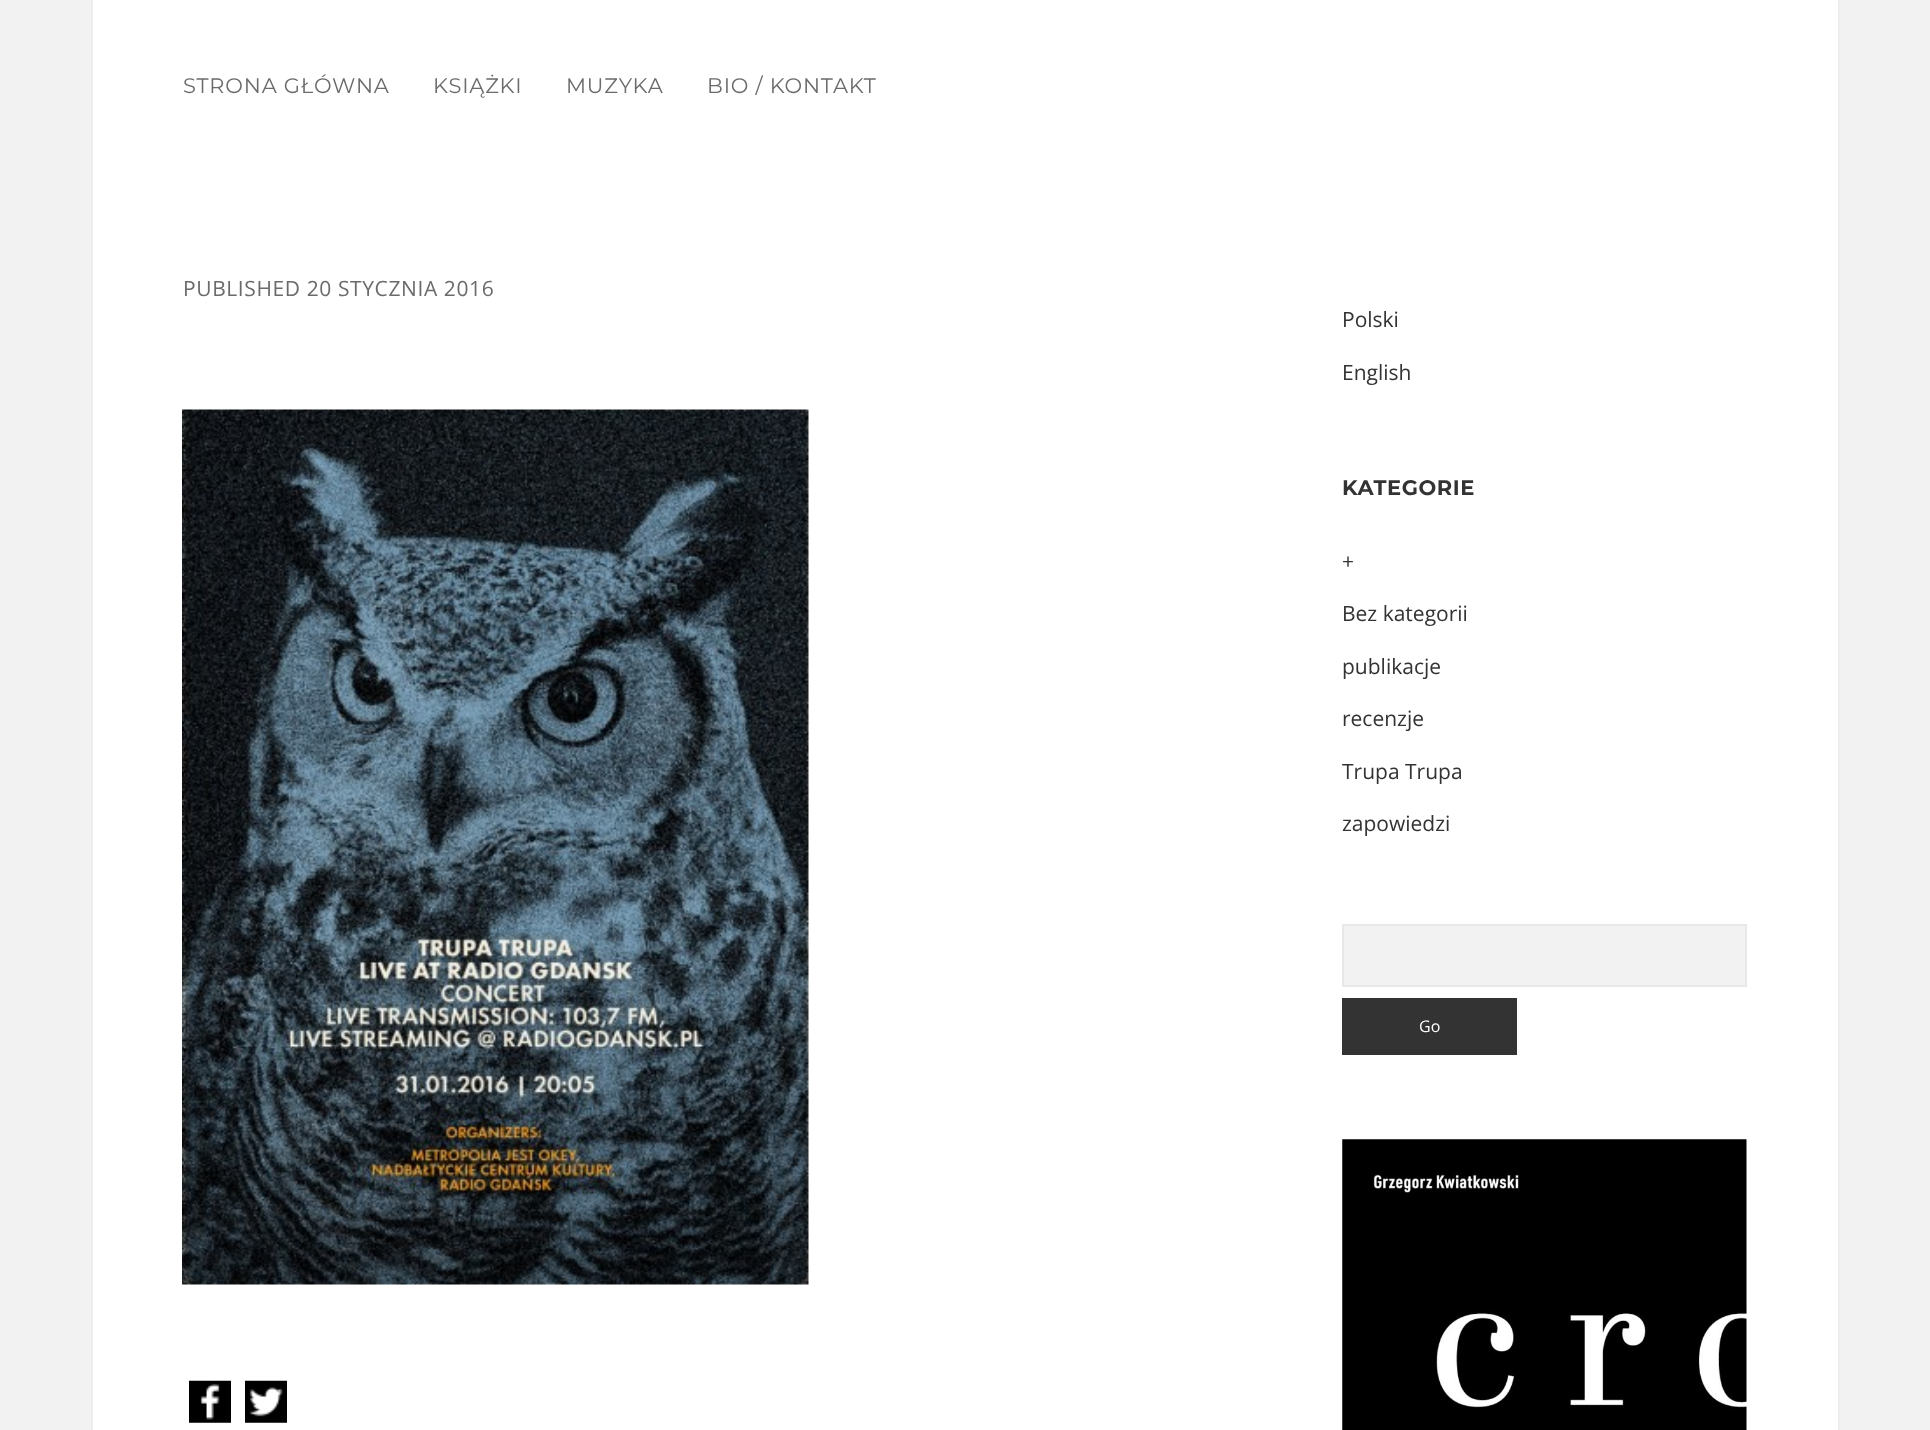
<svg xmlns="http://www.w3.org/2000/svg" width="1930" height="1430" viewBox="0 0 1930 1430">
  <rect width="100%" height="100%" fill="#f2f2f2"/>
  <path d="M93 0h1745v1430H93z" fill="#fff"/>
  <path d="M1838 0h2v1430H1838z" fill="#ededed"/>
  <path d="M91 0h2v1430H91z" fill="#ededed"/>
  <image x="182" y="409" width="627" height="876" href="img/1.png"/>
  <image x="189" y="1380" width="42" height="43" href="img/2.png"/>
  <image x="245" y="1380" width="42" height="43" href="img/3.png"/>
  <path d="M1343 925h403v61H1343z" fill="#f2f2f2" stroke="#e8e8e8" stroke-width="2"/>
  <path d="M1342 998h175v57H1342z" fill="#333"/>
  <image x="1342" y="1139" width="405" height="291" href="img/4.png"/>
  <g font-family="Montserrat" font-size="21" letter-spacing="0.8" fill="#6b6b6b">
    <text x="183" y="93">STRONA GŁÓWNA</text>
    <text x="433" y="93">KSIĄŻKI</text>
    <text x="566" y="93">MUZYKA</text>
    <text x="707" y="93">BIO / KONTAKT</text>
  </g>
  <text x="183" y="296" font-family="Open Sans" font-size="21" letter-spacing="0.6" fill="#6b6b6b">PUBLISHED 20 STYCZNIA 2016</text>
  <g font-family="Open Sans" font-size="21" fill="#333">
    <text x="1342" y="327">Polski</text>
    <text x="1342" y="380">English</text>
  </g>
  <text x="1342" y="495" font-family="Montserrat" font-size="21" font-weight="bold" letter-spacing="0.6" fill="#333">KATEGORIE</text>
  <g font-family="Open Sans" font-size="21" fill="#333">
    <text x="1342" y="569">+</text>
    <text x="1342" y="621">Bez kategorii</text>
    <text x="1342" y="674">publikacje</text>
    <text x="1342" y="726">recenzje</text>
    <text x="1342" y="779">Trupa Trupa</text>
    <text x="1342" y="831">zapowiedzi</text>
  </g>
  <text x="1419" y="1032" font-family="Open Sans" font-size="16" fill="#fff">Go</text>
</svg>
